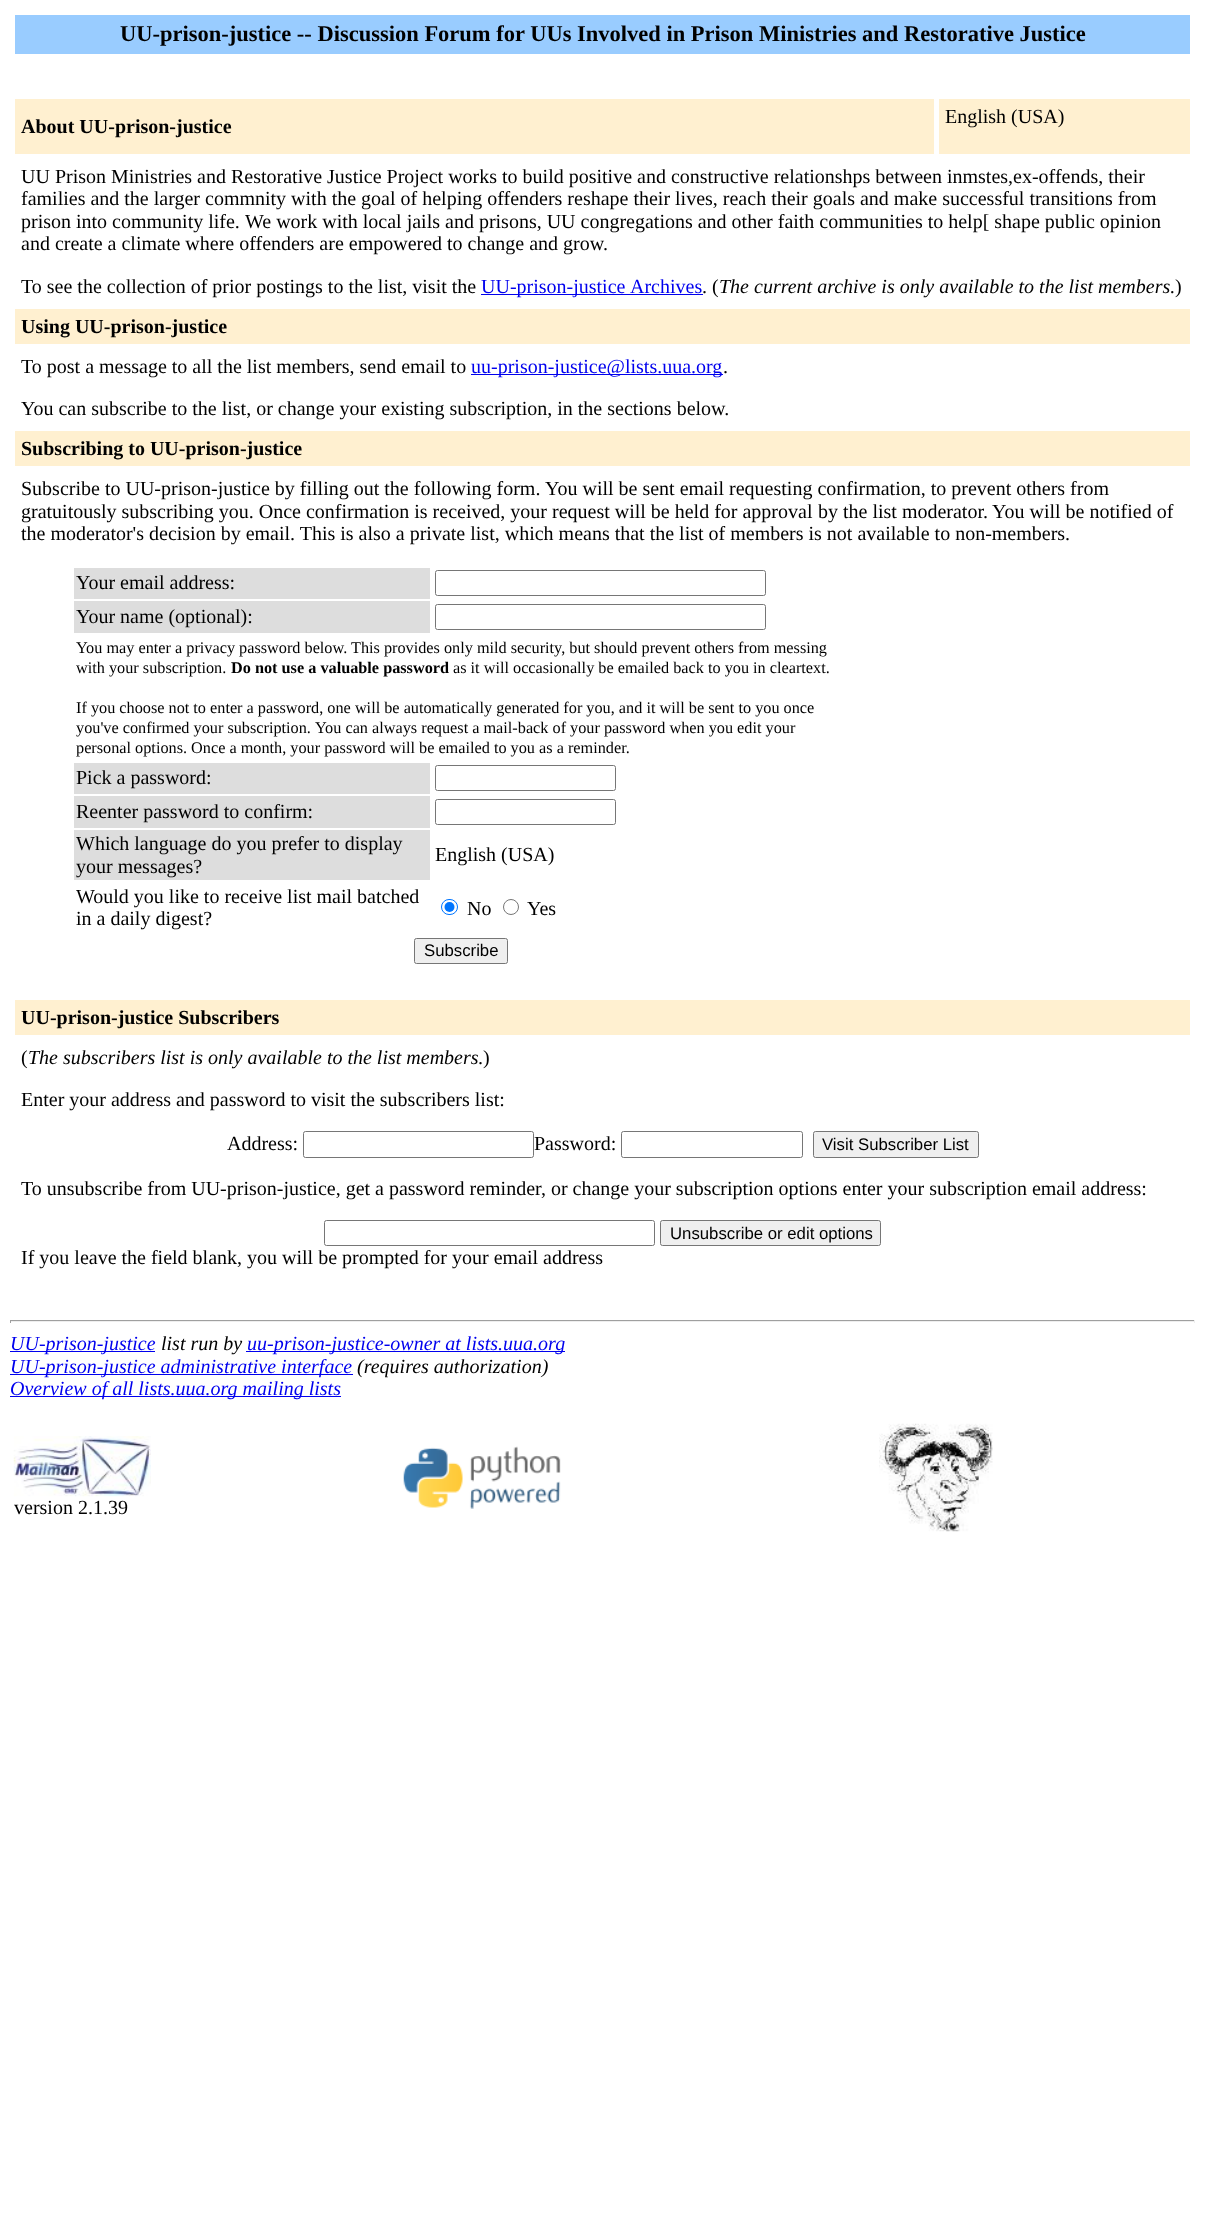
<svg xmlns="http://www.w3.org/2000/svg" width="1205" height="2240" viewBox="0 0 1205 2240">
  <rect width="100%" height="100%" fill="#fff"/>
  <path d="M15 15h1175v39H15z" fill="#9cf"/>
  <path d="M15 99h919v55H15z" fill="#fff0d0"/>
  <path d="M939 99h251v55H939z" fill="#fff0d0"/>
  <path d="M481 294h222v1H481z" fill="#00e"/>
  <path d="M15 309h1175v35H15z" fill="#fff0d0"/>
  <path d="M471 374h252v1H471z" fill="#00e"/>
  <path d="M15 431h1175v35H15z" fill="#fff0d0"/>
  <path d="M74 568h356v31H74z" fill="#ddd"/>
  <rect x="435.5" y="570.5" width="330" height="25" rx="2" fill="none" stroke="#767676"/>
  <path d="M74 601h356v32H74z" fill="#ddd"/>
  <rect x="435.5" y="604.5" width="330" height="25" rx="2" fill="none" stroke="#767676"/>
  <path d="M74 763h356v31H74z" fill="#ddd"/>
  <rect x="435.5" y="765.5" width="180" height="25" rx="2" fill="none" stroke="#767676"/>
  <path d="M74 796h356v32H74z" fill="#ddd"/>
  <rect x="435.5" y="799.5" width="180" height="25" rx="2" fill="none" stroke="#767676"/>
  <path d="M74 830h356v50H74z" fill="#ddd"/>
  <rect x="441.5" y="899.5" width="16" height="15" rx="7.5" fill="none" stroke="#0075ff"/>
  <circle cx="449.5" cy="907" r="5" fill="#0075ff"/>
  <circle cx="511" cy="907" r="7.5" fill="none" stroke="#767676"/>
  <rect x="414.5" y="938.5" width="93" height="25" rx="2" fill="#efefef" stroke="#767676"/>
  <path d="M15 1000h1175v35H15z" fill="#fff0d0"/>
  <rect x="303.5" y="1131.5" width="230" height="26" rx="2" fill="none" stroke="#767676"/>
  <rect x="621.5" y="1131.5" width="181" height="26" rx="2" fill="none" stroke="#767676"/>
  <rect x="813.5" y="1131.5" width="165" height="26" rx="2" fill="#efefef" stroke="#767676"/>
  <rect x="324.5" y="1220.5" width="330" height="25" rx="2" fill="none" stroke="#767676"/>
  <rect x="660.5" y="1220.5" width="220" height="25" rx="2" fill="#efefef" stroke="#767676"/>
  <path d="M10 1320h1185v1H10z" fill="#9f9f9f"/>
  <path d="M1194 1320h1v3H1194z" fill="#eee"/>
  <path d="M10 1321h1185v1H10z" fill="#eee"/>
  <path d="M10 1320h1v3H10z" fill="#9f9f9f"/>
  <path d="M10 1351h145v1H10z" fill="#00e"/>
  <path d="M246 1351h319v1H246z" fill="#00e"/>
  <path d="M10 1374h343v1H10z" fill="#00e"/>
  <path d="M10 1396h331v1H10z" fill="#00e"/>
  <image x="13" y="1436" width="138" height="61" href="img/1.png"/>
  <image x="403" y="1446" width="158" height="63" href="img/2.png"/>
  <image x="879" y="1423" width="114" height="109" href="img/3.png"/>
  <text x="120" y="41" font-family="Liberation Serif" font-size="22.5" font-weight="bold" fill="#000">UU-prison-justice -- Discussion Forum for UUs Involved in Prison Ministries and Restorative Justice</text>
  <text x="21" y="133" font-family="Liberation Serif" font-size="20" font-weight="bold" fill="#000">About UU-prison-justice</text>
  <g font-family="Liberation Serif" font-size="20" fill="#000">
    <text x="945" y="123">English (USA)</text>
    <text x="21" y="183">UU Prison Ministries and Restorative Justice Project works to build positive and constructive relationshps between inmstes,ex-offends, their</text>
    <text x="21" y="205">families and the larger commnity with the goal of helping offenders reshape their lives, reach their goals and make successful transitions from</text>
    <text x="21" y="228">prison into community life.</text>
    <text x="245" y="228">We work with local jails and prisons, UU congregations and other faith communities to help[ shape public opinion</text>
    <text x="21" y="250">and create a climate where offenders are empowered to change and grow.</text>
    <text x="21" y="293">To see the collection of prior postings to the list, visit the</text>
  </g>
  <g font-family="Liberation Serif" font-size="20" fill="#00e">
    <text x="481" y="293">UU-prison-justice</text>
    <text x="630" y="293">Archives</text>
  </g>
  <text x="702" y="293" font-family="Liberation Serif" font-size="20" fill="#000">. (</text>
  <text x="719" y="293" font-family="Liberation Serif" font-size="20" font-style="italic" fill="#000">The current archive is only available to the list members.</text>
  <text x="1175" y="293" font-family="Liberation Serif" font-size="20" fill="#000">)</text>
  <text x="21" y="333" font-family="Liberation Serif" font-size="20" font-weight="bold" fill="#000">Using UU-prison-justice</text>
  <text x="21" y="373" font-family="Liberation Serif" font-size="20" fill="#000">To post a message to all the list members, send email to</text>
  <text x="471" y="373" font-family="Liberation Serif" font-size="20" fill="#00e">uu-prison-justice@lists.uua.org</text>
  <g font-family="Liberation Serif" font-size="20" fill="#000">
    <text x="723" y="373">.</text>
    <text x="21" y="415">You can subscribe to the list, or change your existing subscription, in the sections below.</text>
  </g>
  <text x="21" y="455" font-family="Liberation Serif" font-size="20" font-weight="bold" fill="#000">Subscribing to UU-prison-justice</text>
  <g font-family="Liberation Serif" font-size="20" fill="#000">
    <text x="21" y="495">Subscribe to UU-prison-justice by filling out the following form.</text>
    <text x="545" y="495">You will be sent email requesting confirmation, to prevent others from</text>
    <text x="21" y="518">gratuitously subscribing you. Once confirmation is received, your request will be held for approval</text>
    <text x="818" y="518">by the list moderator.</text>
    <text x="992" y="518">You will be notified of</text>
    <text x="21" y="540">the moderator's decision by email. This is also a private list, which means that the list of members is not available to non-members.</text>
    <text x="76" y="589">Your email address:</text>
    <text x="76" y="623">Your name (optional):</text>
  </g>
  <g font-family="Liberation Serif" font-size="16.25" fill="#000">
    <text x="76" y="653">You may enter a privacy password below. This provides only mild security, but should prevent others from messing</text>
    <text x="76" y="673">with your subscription.</text>
  </g>
  <text x="231" y="673" font-family="Liberation Serif" font-size="16.25" font-weight="bold" fill="#000">Do not use a valuable password</text>
  <g font-family="Liberation Serif" font-size="16.25" fill="#000">
    <text x="453" y="673">as it will occasionally be emailed back to you in cleartext.</text>
    <text x="76" y="713">If you choose not to enter a password, one will be automatically generated for you, and it will be sent to you once</text>
    <text x="76" y="733">you've confirmed your subscription.</text>
    <text x="315" y="733">You can always request a mail-back of your password when you edit your</text>
    <text x="76" y="753">personal options. Once a month, your password will be emailed to you as a reminder.</text>
  </g>
  <g font-family="Liberation Serif" font-size="20" fill="#000">
    <text x="76" y="784">Pick a password:</text>
    <text x="76" y="818">Reenter password to confirm:</text>
    <text x="76" y="850">Which language do you prefer to display</text>
    <text x="76" y="873">your messages?</text>
    <text x="435" y="861">English (USA)</text>
    <text x="76" y="903">Would you like to receive list mail batched</text>
    <text x="76" y="925">in a daily digest?</text>
    <text x="467" y="915">No</text>
    <text x="527" y="915">Yes</text>
  </g>
  <text x="424" y="956" font-family="Liberation Sans" font-size="16.75" fill="#000">Subscribe</text>
  <text x="21" y="1024" font-family="Liberation Serif" font-size="20" font-weight="bold" fill="#000">UU-prison-justice Subscribers</text>
  <text x="21" y="1064" font-family="Liberation Serif" font-size="20" fill="#000">(</text>
  <text x="28" y="1064" font-family="Liberation Serif" font-size="20" font-style="italic" fill="#000">The subscribers list is only available to the list members.</text>
  <g font-family="Liberation Serif" font-size="20" fill="#000">
    <text x="483" y="1064">)</text>
    <text x="21" y="1106">Enter your address and password to visit the subscribers list:</text>
    <text x="227" y="1150">Address:</text>
    <text x="534" y="1150">Password:</text>
  </g>
  <text x="822" y="1150" font-family="Liberation Sans" font-size="16.75" fill="#000">Visit Subscriber List</text>
  <text x="21" y="1195" font-family="Liberation Serif" font-size="20" fill="#000">To unsubscribe from UU-prison-justice, get a password reminder, or change your subscription options enter your subscription email address:</text>
  <text x="670" y="1239" font-family="Liberation Sans" font-size="16.75" fill="#000">Unsubscribe or edit options</text>
  <text x="21" y="1264" font-family="Liberation Serif" font-size="20" fill="#000">If you leave the field blank, you will be prompted for your email address</text>
  <text x="10" y="1350" font-family="Liberation Serif" font-size="20" font-style="italic" fill="#00e">UU-prison-justice</text>
  <text x="161" y="1350" font-family="Liberation Serif" font-size="20" font-style="italic" fill="#000">list run by</text>
  <g font-family="Liberation Serif" font-size="20" font-style="italic" fill="#00e">
    <text x="247" y="1350">uu-prison-justice-owner at lists.uua.org</text>
    <text x="10" y="1373">UU-prison-justice administrative interface</text>
  </g>
  <text x="357" y="1373" font-family="Liberation Serif" font-size="20" font-style="italic" fill="#000">(requires authorization)</text>
  <text x="10" y="1395" font-family="Liberation Serif" font-size="20" font-style="italic" fill="#00e">Overview of all lists.uua.org mailing lists</text>
  <text x="14" y="1514" font-family="Liberation Serif" font-size="20" fill="#000">version 2.1.39</text>
</svg>
